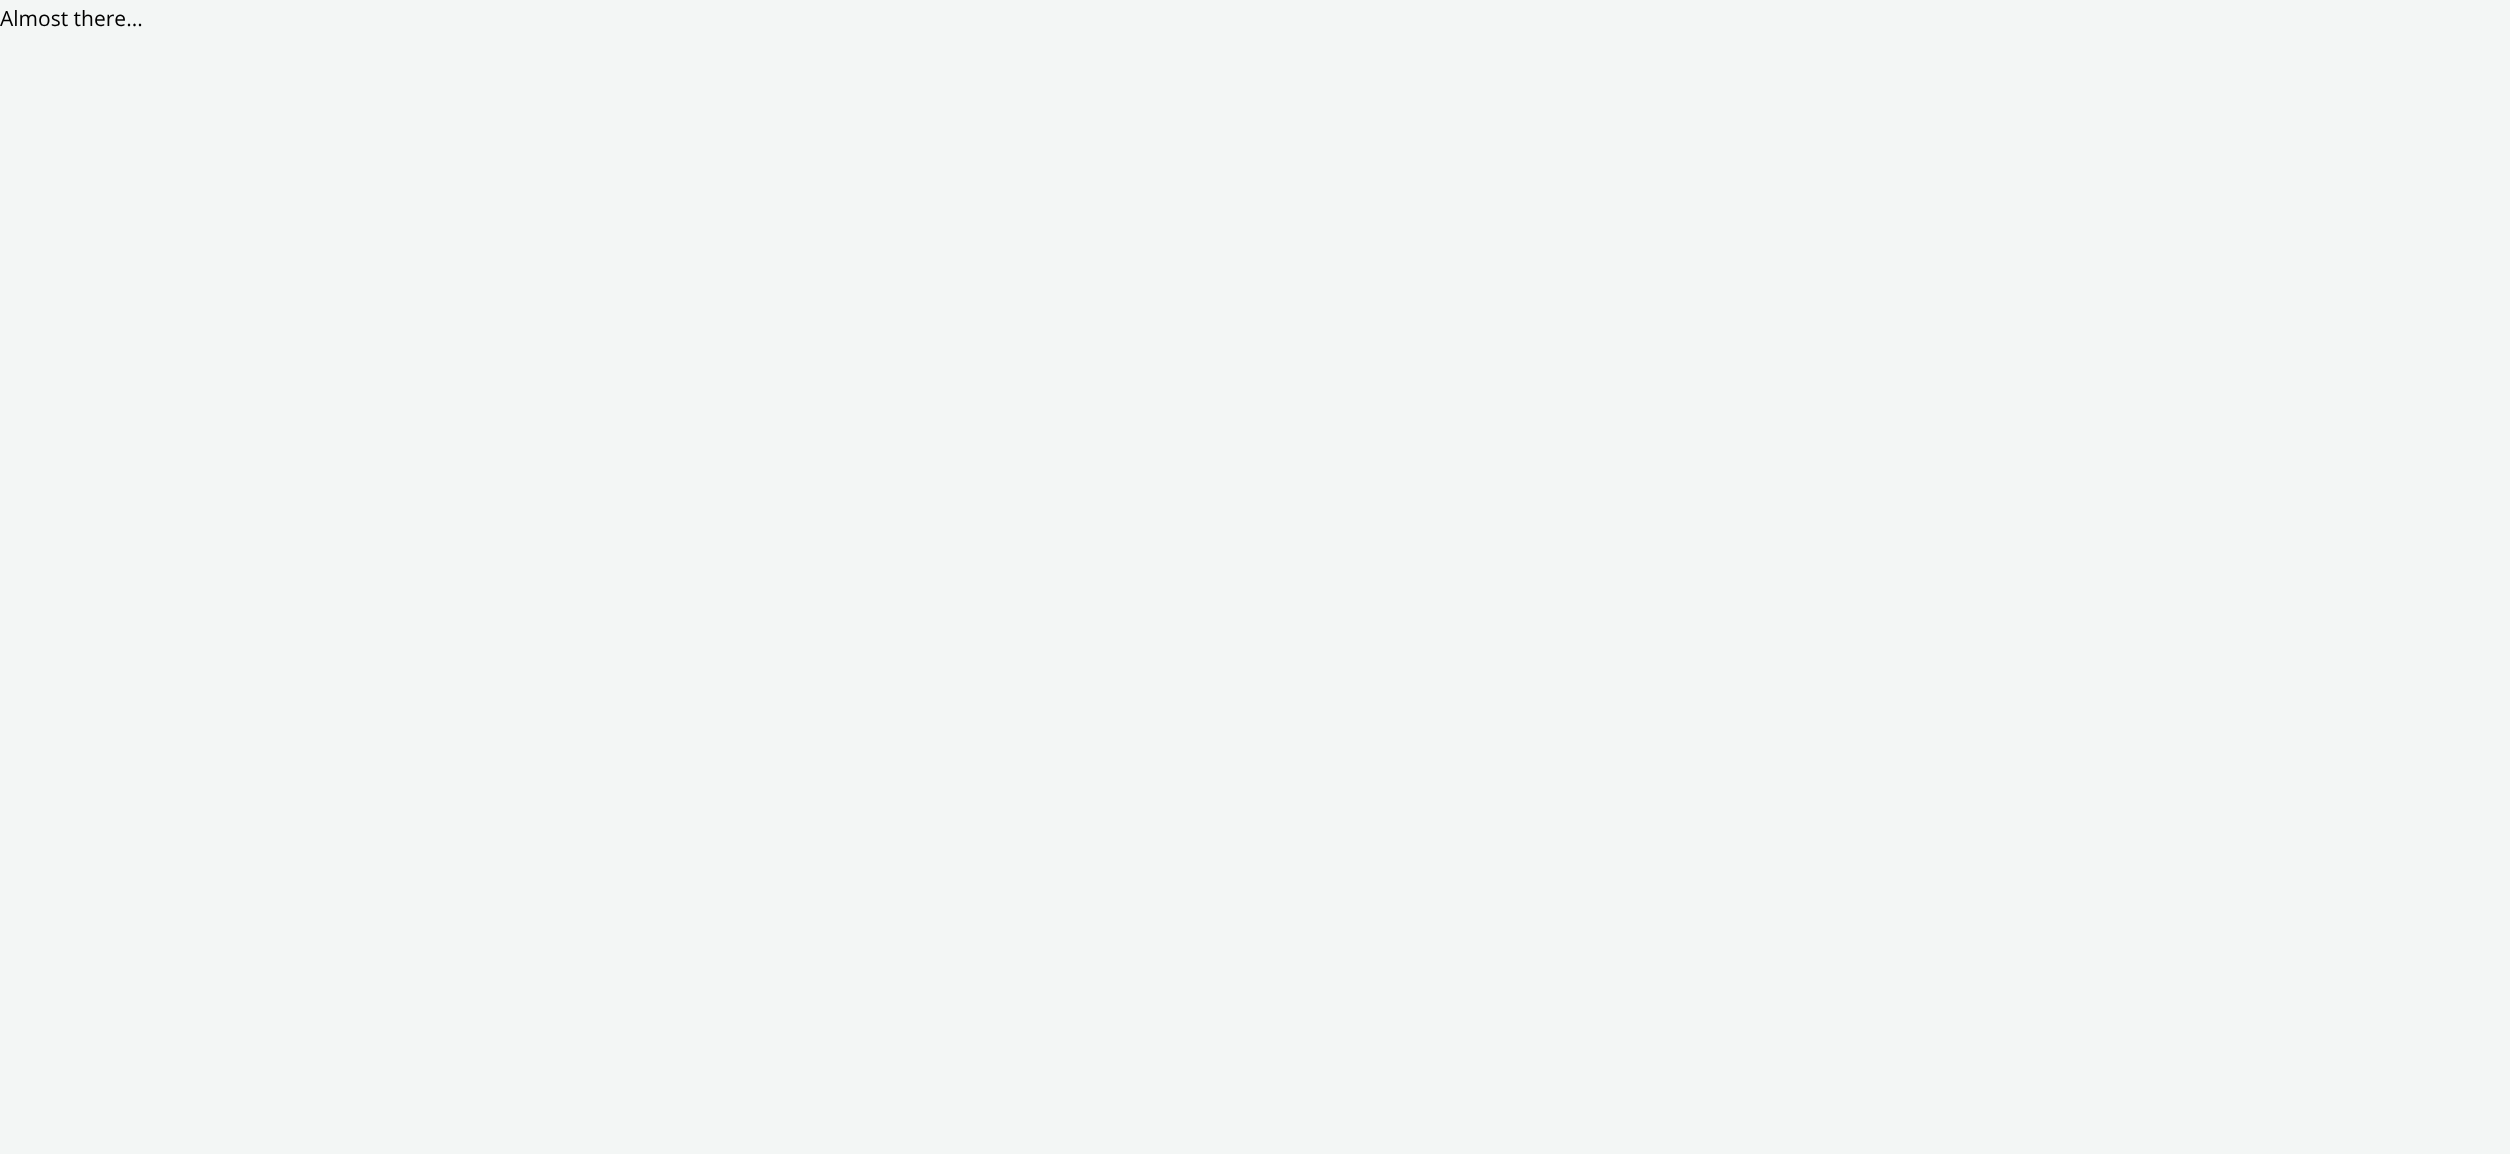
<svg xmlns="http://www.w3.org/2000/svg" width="2510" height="1154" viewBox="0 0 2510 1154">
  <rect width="100%" height="100%" fill="#f3f6f5"/>
  <text x="0" y="26" font-family="Open Sans" font-size="21" fill="#000">Almost there...</text>
</svg>
